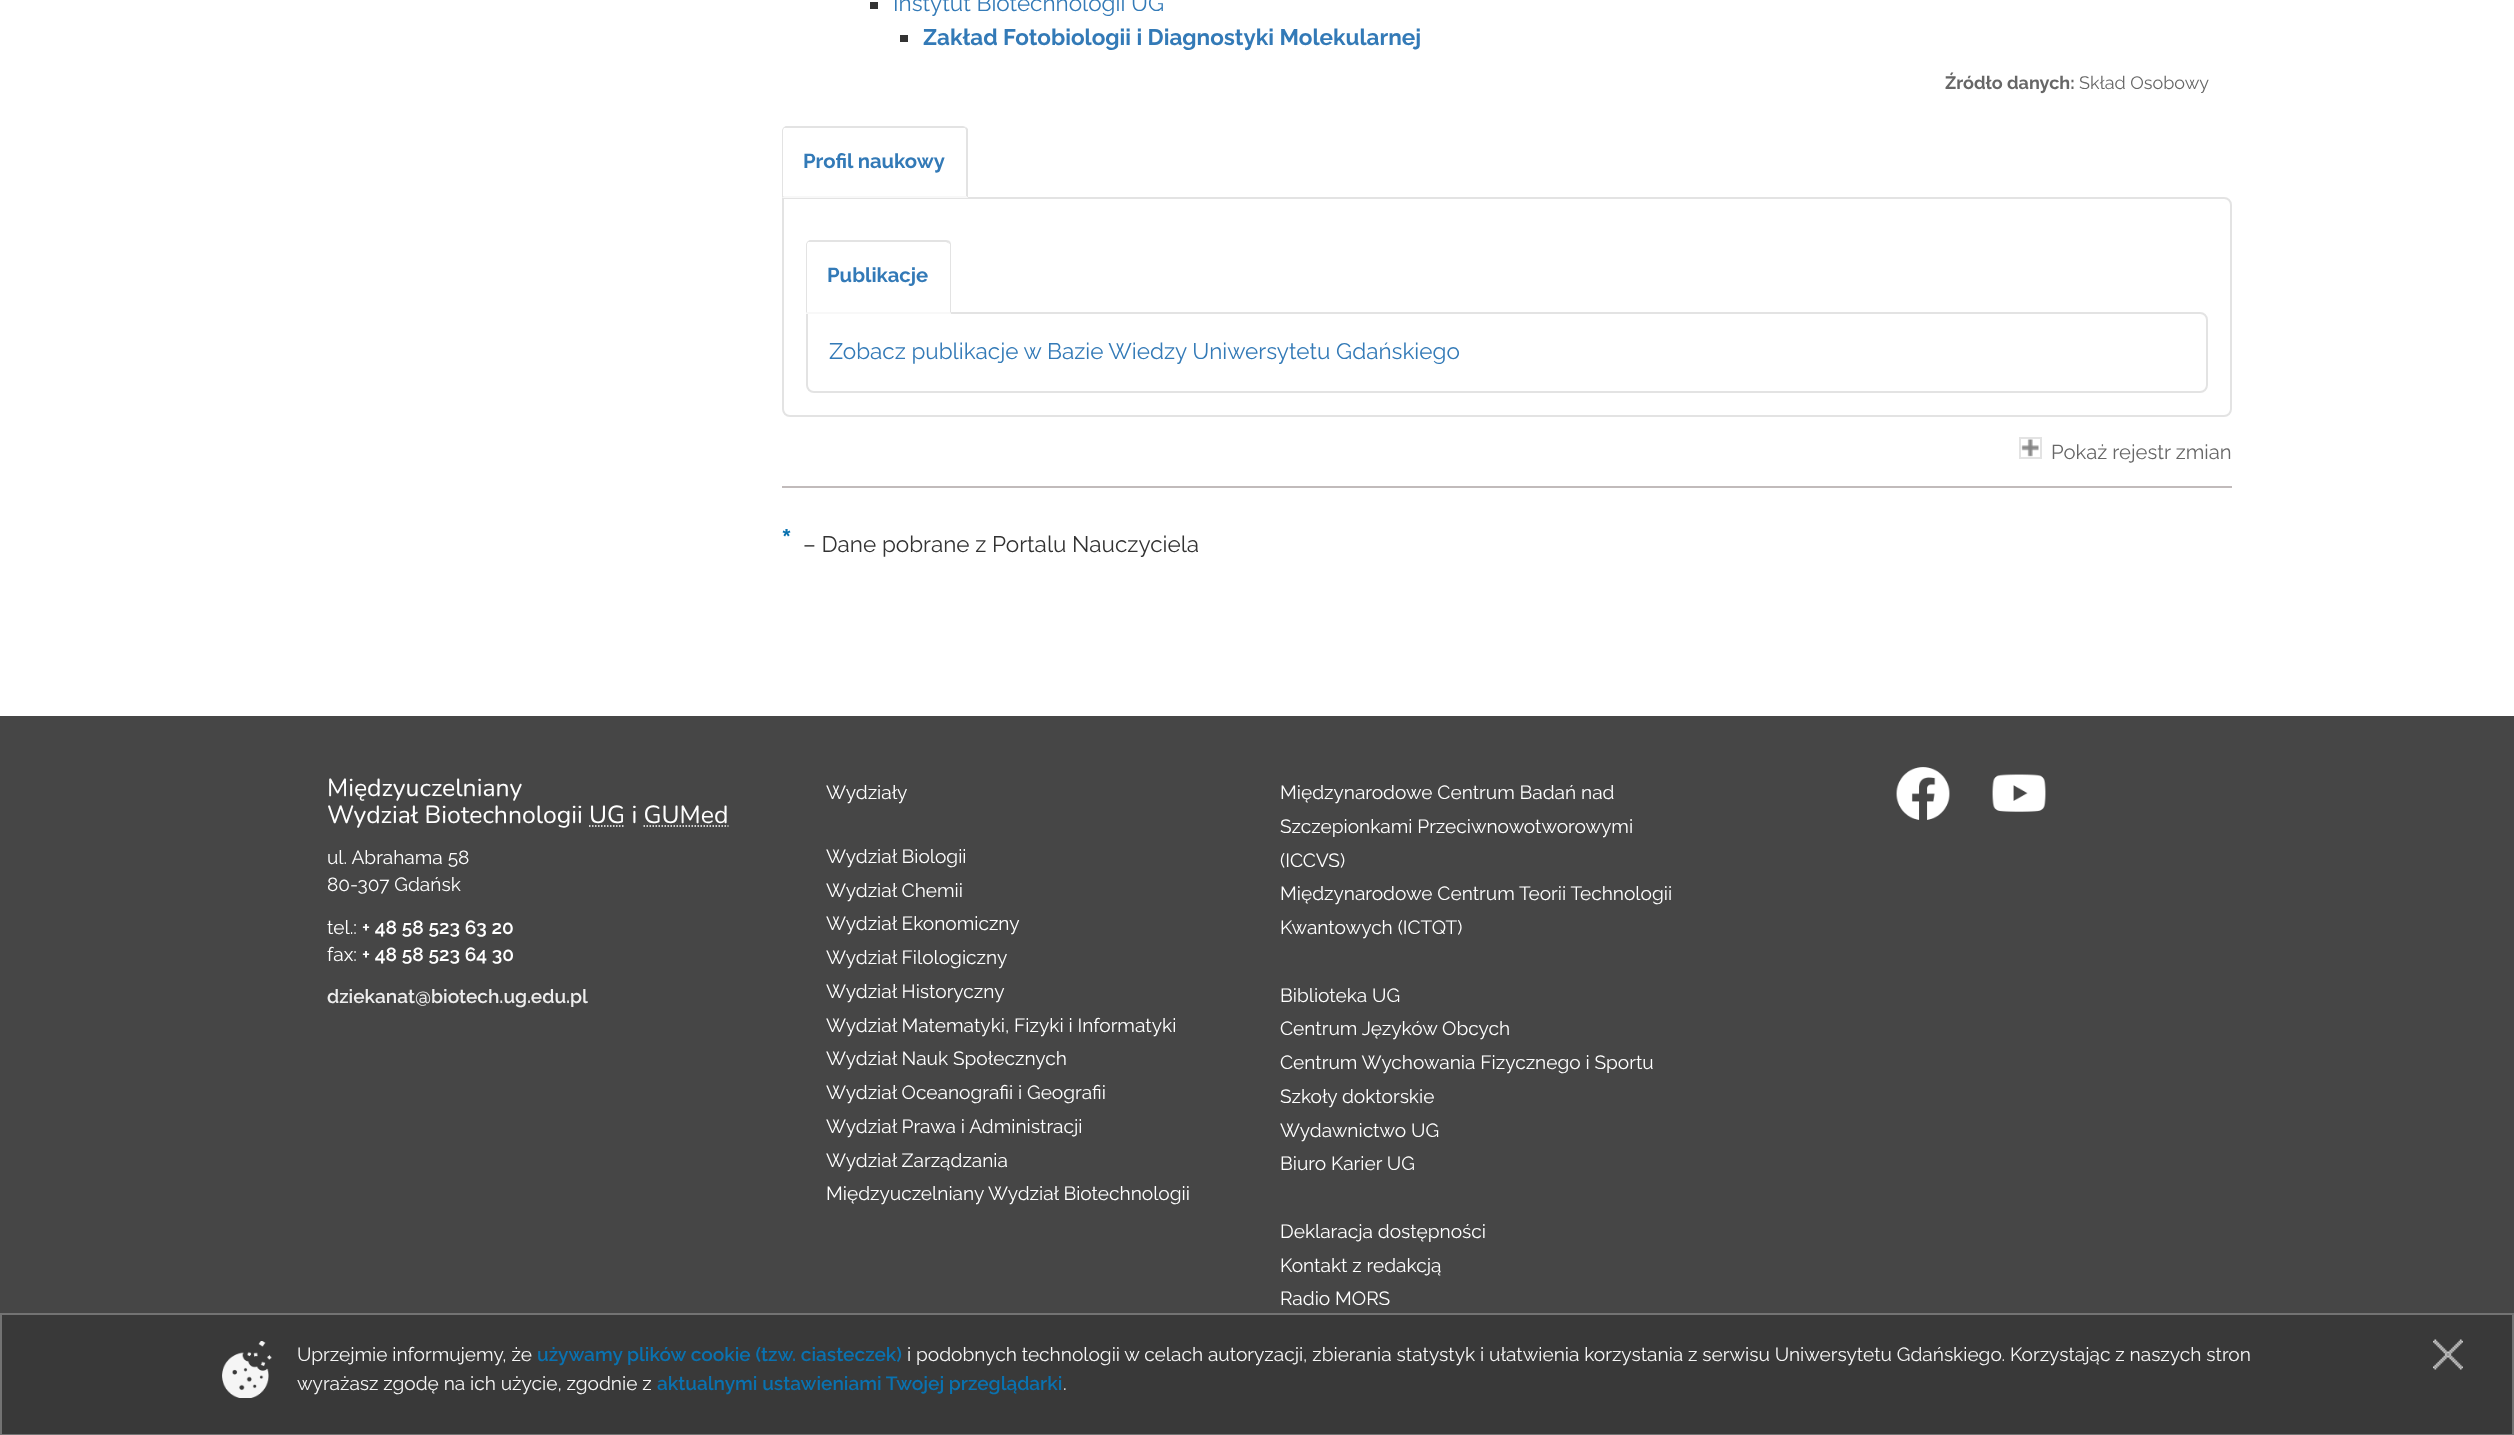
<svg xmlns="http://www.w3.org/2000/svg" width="2514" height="1435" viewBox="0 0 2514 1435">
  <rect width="100%" height="100%" fill="#fff"/>
  <path d="M870 2h8v7H870z" fill="#333"/>
  <path d="M900 35h8v7H900z" fill="#333"/>
  <path d="M783 198H2224C2228 198 2231 201 2231 205V409C2231 413 2228 416 2224 416H790C786 416 783 413 783 409Z" fill="none" stroke="#e3e3e3" stroke-width="2"/>
  <path d="M787 126H963C966 126 968 128 968 131V198H782V131C782 128 784 126 787 126Z" fill="#fff"/>
  <path d="M786 126C785 126 784 127 783 128H784H786H963H965L966 127L963 126Z" fill="#e3e3e3"/>
  <path d="M968 129V198L966 196V130L965 128L966 127Z" fill="#e3e3e3"/>
  <path d="M968 198L966 196H784L782 198Z" fill="#f8f8f8"/>
  <path d="M783 128L782 130V198L784 196H783V130L784 128Z" fill="#e3e3e3"/>
  <path d="M807 313H2200C2204 313 2207 316 2207 320V385C2207 389 2204 392 2200 392H814C810 392 807 389 807 385Z" fill="none" stroke="#e3e3e3" stroke-width="2"/>
  <path d="M811 240H946C949 240 951 242 951 245V314H806V245C806 242 808 240 811 240Z" fill="#fff"/>
  <path d="M810 240C809 240 808 241 807 242H808H810H946L948 243L950 241C949 241 948 240 946 240Z" fill="#e3e3e3"/>
  <path d="M951 314V244L950 241L948 243L950 244V312Z" fill="#e3e3e3"/>
  <path d="M951 314H806L807 312H950Z" fill="#f8f8f8"/>
  <path d="M807 242L806 244V313L807 312V244L808 242Z" fill="#e3e3e3"/>
  <image x="2021" y="439" width="18" height="18" href="img/1.png"/>
  <path d="M2020 438h21v20H2020z" fill="none" stroke="#e3e3e3" stroke-width="2"/>
  <path d="M782 486h1450v2H782z" fill="#c1bbbb"/>
  <path d="M0 716h2514v597H0z" fill="#464646"/>
  <path d="M589 826H625" fill="none" stroke="#fff" stroke-width="1.5" stroke-dasharray="1.5 1.5"/>
  <path d="M643.5 826H728.5" fill="none" stroke="#fff" stroke-width="1.5" stroke-dasharray="1.5 1.5"/>
  <image x="1896" y="767" width="54" height="53" href="img/2.png"/>
  <image x="1992" y="774" width="54" height="38" href="img/3.png"/>
  <path d="M1 1314h2512v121H1z" fill="#393939" stroke="#737373" stroke-width="2"/>
  <image x="222" y="1341" width="50" height="57" href="img/4.png"/>
  <image x="2433" y="1339" width="30" height="31" href="img/5.png"/>
  <text x="893" y="11" font-family="Raleway" font-size="22.5" fill="#337ab7">Instytut Biotechnologii UG</text>
  <text x="923" y="45" font-family="Raleway" font-size="22.5" font-weight="bold" fill="#337ab7">Zakład Fotobiologii i Diagnostyki Molekularnej</text>
  <text x="1945" y="89" font-family="Raleway" font-size="18" font-weight="bold" fill="#676767">Źródło danych:</text>
  <text x="2079" y="89" font-family="Raleway" font-size="18" fill="#676767">Skład Osobowy</text>
  <g font-family="Raleway" font-size="20.25" font-weight="bold" fill="#337ab7">
    <text x="803" y="168">Profil naukowy</text>
    <text x="827" y="282">Publikacje</text>
  </g>
  <text x="829" y="359" font-family="Raleway" font-size="22.5" fill="#337ab7">Zobacz publikacje w Bazie Wiedzy Uniwersytetu Gdańskiego</text>
  <text x="2051" y="459" font-family="Raleway" font-size="20.25" fill="#676767">Pokaż rejestr zmian</text>
  <text x="781" y="552" font-family="Raleway" font-size="32" font-weight="bold" fill="#0a72b0">*</text>
  <text x="803" y="552" font-family="Raleway" font-size="22.5" fill="#333">– Dane pobrane z Portalu Nauczyciela</text>
  <g font-family="Nunito" font-size="24.75" fill="#fff">
    <text x="327" y="796">Międzyuczelniany</text>
    <text x="327" y="823">Wydział Biotechnologii UG i GUMed</text>
  </g>
  <g font-family="Raleway" font-size="19.12" fill="#fff">
    <text x="327" y="864">ul. Abrahama 58</text>
    <text x="327" y="891">80-307 Gdańsk</text>
    <text x="327" y="934">tel.:</text>
  </g>
  <text x="362" y="934" font-family="Raleway" font-size="19.12" font-weight="600" fill="#fff">+ 48 58 523 63 20</text>
  <text x="327" y="961" font-family="Raleway" font-size="19.12" fill="#fff">fax:</text>
  <text x="362" y="961" font-family="Raleway" font-size="19.12" font-weight="600" fill="#fff">+ 48 58 523 64 30</text>
  <text x="327" y="1003" font-family="Raleway" font-size="19.12" font-weight="600" fill="#eee">dziekanat@biotech.ug.edu.pl</text>
  <g font-family="Raleway" font-size="19.12" fill="#fff">
    <text x="826" y="799">Wydziały</text>
    <text x="826" y="863">Wydział Biologii</text>
    <text x="826" y="897">Wydział Chemii</text>
    <text x="826" y="930">Wydział Ekonomiczny</text>
    <text x="826" y="964">Wydział Filologiczny</text>
    <text x="826" y="998">Wydział Historyczny</text>
    <text x="826" y="1032">Wydział Matematyki, Fizyki i Informatyki</text>
    <text x="826" y="1065">Wydział Nauk Społecznych</text>
    <text x="826" y="1099">Wydział Oceanografii i Geografii</text>
    <text x="826" y="1133">Wydział Prawa i Administracji</text>
    <text x="826" y="1167">Wydział Zarządzania</text>
    <text x="826" y="1200">Międzyuczelniany Wydział Biotechnologii</text>
    <text x="1280" y="799">Międzynarodowe Centrum Badań nad</text>
    <text x="1280" y="833">Szczepionkami Przeciwnowotworowymi</text>
    <text x="1280" y="867">(ICCVS)</text>
    <text x="1280" y="900">Międzynarodowe Centrum Teorii Technologii</text>
    <text x="1280" y="934">Kwantowych (ICTQT)</text>
    <text x="1280" y="1002">Biblioteka UG</text>
    <text x="1280" y="1035">Centrum Języków Obcych</text>
    <text x="1280" y="1069">Centrum Wychowania Fizycznego i Sportu</text>
    <text x="1280" y="1103">Szkoły doktorskie</text>
    <text x="1280" y="1137">Wydawnictwo UG</text>
    <text x="1280" y="1170">Biuro Karier UG</text>
    <text x="1280" y="1238">Deklaracja dostępności</text>
    <text x="1280" y="1272">Kontakt z redakcją</text>
    <text x="1280" y="1305">Radio MORS</text>
  </g>
  <text x="297" y="1361" font-family="Raleway" font-size="19.12" fill="#f6f6f6">Uprzejmie informujemy, że</text>
  <text x="537" y="1361" font-family="Raleway" font-size="19.12" font-weight="600" fill="#0a72b0">używamy plików cookie (tzw. ciasteczek)</text>
  <g font-family="Raleway" font-size="19.12" fill="#f6f6f6">
    <text x="907" y="1361">i podobnych technologii w celach autoryzacji, zbierania statystyk i ułatwienia korzystania z serwisu Uniwersytetu Gdańskiego. Korzystając z naszych stron</text>
    <text x="297" y="1390">wyrażasz zgodę na ich użycie, zgodnie z</text>
  </g>
  <text x="657" y="1390" font-family="Raleway" font-size="19.12" font-weight="600" fill="#0a72b0">aktualnymi ustawieniami Twojej przeglądarki</text>
  <text x="1063" y="1390" font-family="Raleway" font-size="19.12" fill="#f6f6f6">.</text>
</svg>
